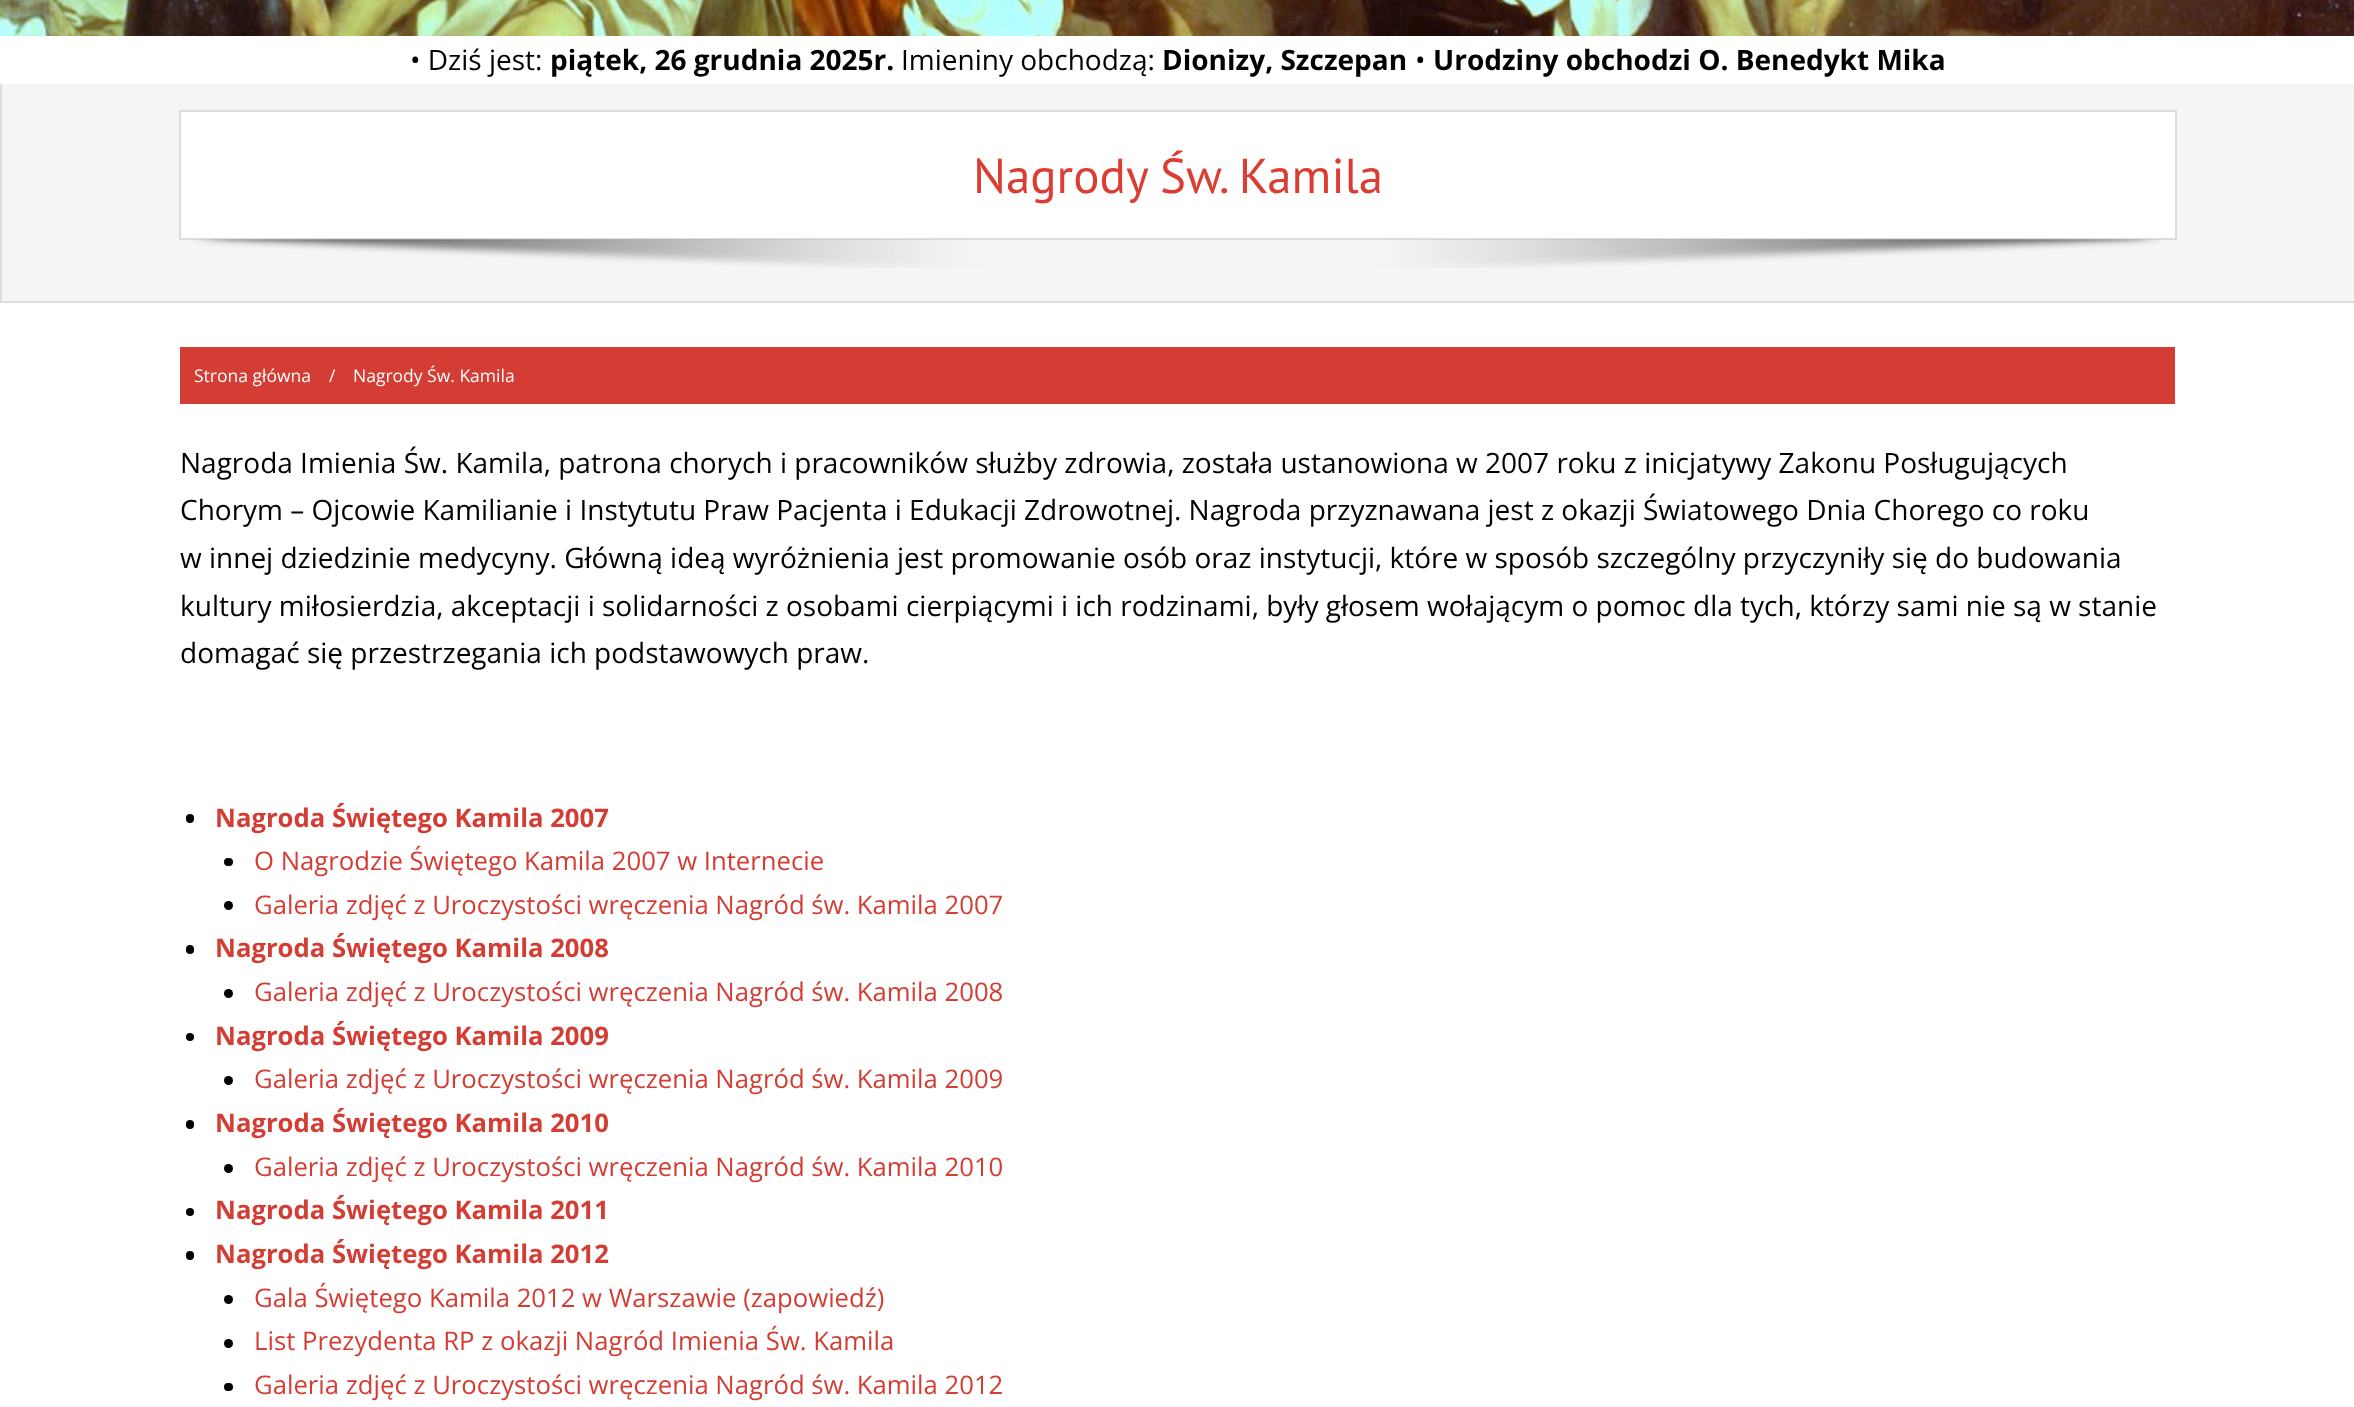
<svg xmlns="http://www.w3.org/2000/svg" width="2354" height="1407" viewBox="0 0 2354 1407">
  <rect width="100%" height="100%" fill="#fff"/>
  <image x="0" y="0" width="2354" height="36" href="img/1.png"/>
  <path d="M2 84h2352v217H2z" fill="#f5f5f5"/>
  <path d="M0 301h2354v2H0z" fill="#ddd"/>
  <path d="M0 84h2v219H0z" fill="#ddd"/>
  <path d="M180 111h1996v128H180z" fill="#fff" stroke="#ddd" stroke-width="2"/>
  <image x="193" y="239" width="1970" height="29" href="img/2.png"/>
  <path d="M180 347h1995v57H180z" fill="#d33d33"/>
  <rect x="186" y="814" width="8" height="9" rx="4" fill="#000"/>
  <rect x="224" y="858" width="9" height="8" rx="4" fill="#000"/>
  <circle cx="228.5" cy="905.5" r="4.5" fill="#000"/>
  <rect x="186" y="945" width="8" height="9" rx="4" fill="#000"/>
  <circle cx="228.5" cy="993.5" r="4.5" fill="#000"/>
  <circle cx="190" cy="1037" r="4" fill="#000"/>
  <circle cx="228.5" cy="1080.5" r="4.5" fill="#000"/>
  <rect x="186" y="1120" width="8" height="9" rx="4" fill="#000"/>
  <circle cx="228.5" cy="1168.5" r="4.5" fill="#000"/>
  <circle cx="190" cy="1212" r="4" fill="#000"/>
  <rect x="186" y="1251" width="8" height="9" rx="4" fill="#000"/>
  <circle cx="228.5" cy="1299.5" r="4.5" fill="#000"/>
  <circle cx="228.5" cy="1343.5" r="4.5" fill="#000"/>
  <rect x="224" y="1383" width="9" height="8" rx="4" fill="#000"/>
  <text x="410" y="70" font-family="Open Sans" font-size="28" fill="#000">• Dziś jest:</text>
  <text x="550" y="70" font-family="Open Sans" font-size="28" font-weight="bold" fill="#000">piątek, 26 grudnia 2025r.</text>
  <text x="901" y="70" font-family="Open Sans" font-size="28" fill="#000">Imieniny obchodzą:</text>
  <text x="1162" y="70" font-family="Open Sans" font-size="28" font-weight="bold" fill="#000">Dionizy, Szczepan</text>
  <text x="1415" y="70" font-family="Open Sans" font-size="28" fill="#000">•</text>
  <text x="1433" y="70" font-family="Open Sans" font-size="28" font-weight="bold" fill="#000">Urodziny obchodzi O. Benedykt Mika</text>
  <text x="973" y="193" font-family="PT Sans" font-size="49" fill="#db3d33">Nagrody Św. Kamila</text>
  <g font-family="Open Sans" font-size="17.5" fill="#fff">
    <text x="194" y="382">Strona główna</text>
    <text x="329" y="382">/</text>
    <text x="353" y="382">Nagrody Św. Kamila</text>
  </g>
  <g font-family="Open Sans" font-size="28" fill="#000">
    <text x="180" y="473">Nagroda Imienia Św. Kamila, patrona chorych i pracowników służby zdrowia, została ustanowiona w 2007 roku z inicjatywy Zakonu Posługujących</text>
    <text x="180" y="520">Chorym – Ojcowie Kamilianie i Instytutu Praw Pacjenta i Edukacji Zdrowotnej. Nagroda przyznawana jest z okazji Światowego Dnia Chorego co roku</text>
    <text x="180" y="568">w innej dziedzinie medycyny. Główną ideą wyróżnienia jest promowanie osób oraz instytucji, które w sposób szczególny przyczyniły się do budowania</text>
    <text x="180" y="616">kultury miłosierdzia, akceptacji i solidarności z osobami cierpiącymi i ich rodzinami, były głosem wołającym o pomoc dla tych, którzy sami nie są w stanie</text>
    <text x="180" y="663">domagać się przestrzegania ich podstawowych praw.</text>
  </g>
  <text x="215" y="827" font-family="Open Sans" font-size="25.7" font-weight="bold" fill="#d33d33">Nagroda Świętego Kamila 2007</text>
  <g font-family="Open Sans" font-size="25.7" fill="#d33d33">
    <text x="254" y="870">O Nagrodzie Świętego Kamila 2007 w Internecie</text>
    <text x="254" y="914">Galeria zdjęć z Uroczystości wręczenia Nagród św. Kamila 2007</text>
  </g>
  <text x="215" y="957" font-family="Open Sans" font-size="25.7" font-weight="bold" fill="#d33d33">Nagroda Świętego Kamila 2008</text>
  <text x="254" y="1001" font-family="Open Sans" font-size="25.7" fill="#d33d33">Galeria zdjęć z Uroczystości wręczenia Nagród św. Kamila 2008</text>
  <text x="215" y="1045" font-family="Open Sans" font-size="25.7" font-weight="bold" fill="#d33d33">Nagroda Świętego Kamila 2009</text>
  <text x="254" y="1088" font-family="Open Sans" font-size="25.7" fill="#d33d33">Galeria zdjęć z Uroczystości wręczenia Nagród św. Kamila 2009</text>
  <text x="215" y="1132" font-family="Open Sans" font-size="25.7" font-weight="bold" fill="#d33d33">Nagroda Świętego Kamila 2010</text>
  <text x="254" y="1176" font-family="Open Sans" font-size="25.7" fill="#d33d33">Galeria zdjęć z Uroczystości wręczenia Nagród św. Kamila 2010</text>
  <g font-family="Open Sans" font-size="25.7" font-weight="bold" fill="#d33d33">
    <text x="215" y="1219">Nagroda Świętego Kamila 2011</text>
    <text x="215" y="1263">Nagroda Świętego Kamila 2012</text>
  </g>
  <g font-family="Open Sans" font-size="25.7" fill="#d33d33">
    <text x="254" y="1307">Gala Świętego Kamila 2012 w Warszawie (zapowiedź)</text>
    <text x="254" y="1350">List Prezydenta RP z okazji Nagród Imienia Św. Kamila</text>
    <text x="254" y="1394">Galeria zdjęć z Uroczystości wręczenia Nagród św. Kamila 2012</text>
  </g>
</svg>
